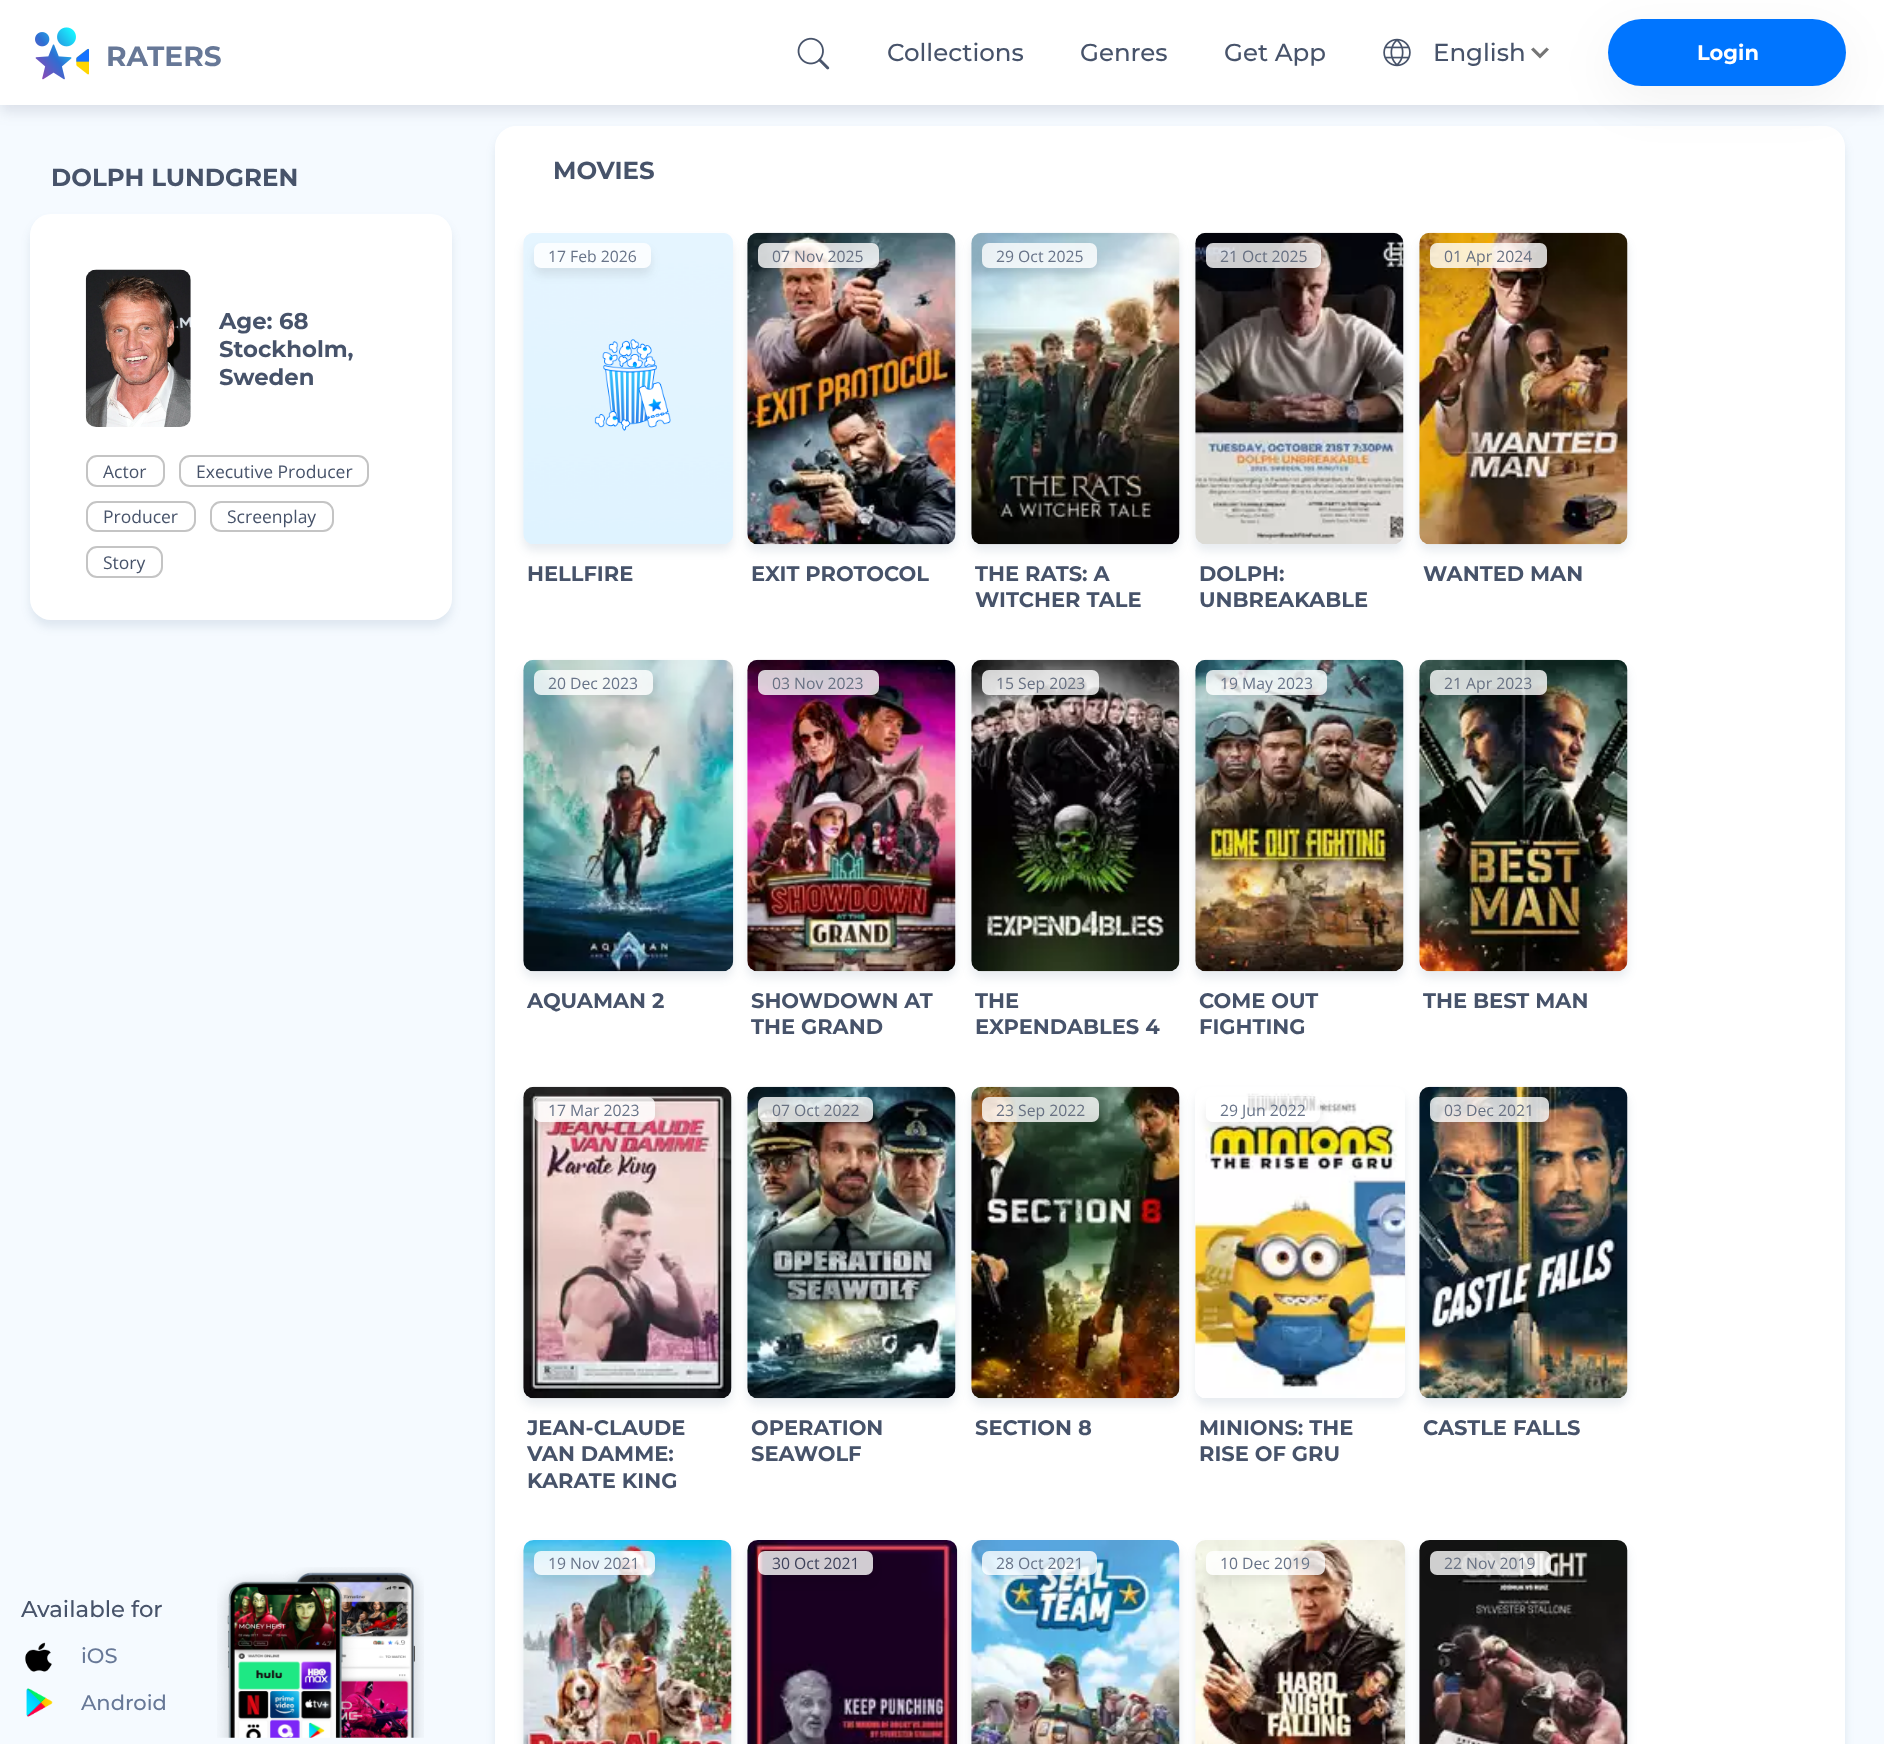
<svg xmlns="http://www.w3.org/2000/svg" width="1884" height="1744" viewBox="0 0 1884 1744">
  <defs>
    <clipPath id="clip1"><path d="M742 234H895V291H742ZM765 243H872C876 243 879 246 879 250V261C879 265 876 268 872 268H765C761 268 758 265 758 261V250C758 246 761 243 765 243Z" clip-rule="evenodd"/></clipPath>
    <clipPath id="clip2"><path d="M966 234H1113V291H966ZM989 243H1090C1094 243 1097 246 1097 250V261C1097 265 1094 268 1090 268H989C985 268 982 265 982 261V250C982 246 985 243 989 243Z" clip-rule="evenodd"/></clipPath>
    <clipPath id="clip3"><path d="M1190 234H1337V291H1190ZM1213 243H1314C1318 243 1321 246 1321 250V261C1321 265 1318 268 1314 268H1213C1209 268 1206 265 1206 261V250C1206 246 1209 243 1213 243Z" clip-rule="evenodd"/></clipPath>
    <clipPath id="clip4"><path d="M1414 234H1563V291H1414ZM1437 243H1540C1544 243 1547 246 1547 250V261C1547 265 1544 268 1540 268H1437C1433 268 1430 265 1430 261V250C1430 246 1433 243 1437 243Z" clip-rule="evenodd"/></clipPath>
    <clipPath id="clip5"><path d="M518 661H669V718H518ZM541 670H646C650 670 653 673 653 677V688C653 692 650 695 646 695H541C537 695 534 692 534 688V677C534 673 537 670 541 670Z" clip-rule="evenodd"/></clipPath>
    <clipPath id="clip6"><path d="M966 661H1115V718H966ZM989 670H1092C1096 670 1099 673 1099 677V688C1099 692 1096 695 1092 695H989C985 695 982 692 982 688V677C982 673 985 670 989 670Z" clip-rule="evenodd"/></clipPath>
    <clipPath id="clip7"><path d="M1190 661H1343V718H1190ZM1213 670H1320C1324 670 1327 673 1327 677V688C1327 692 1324 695 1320 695H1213C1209 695 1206 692 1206 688V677C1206 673 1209 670 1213 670Z" clip-rule="evenodd"/></clipPath>
    <clipPath id="clip8"><path d="M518 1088H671V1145H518ZM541 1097H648C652 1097 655 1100 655 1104V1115C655 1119 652 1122 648 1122H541C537 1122 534 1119 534 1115V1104C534 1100 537 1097 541 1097Z" clip-rule="evenodd"/></clipPath>
    <clipPath id="clip9"><path d="M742 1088H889V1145H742ZM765 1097H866C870 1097 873 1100 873 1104V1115C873 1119 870 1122 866 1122H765C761 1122 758 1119 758 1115V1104C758 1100 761 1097 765 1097Z" clip-rule="evenodd"/></clipPath>
    <clipPath id="clip10"><path d="M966 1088H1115V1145H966ZM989 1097H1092C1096 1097 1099 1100 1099 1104V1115C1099 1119 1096 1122 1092 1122H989C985 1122 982 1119 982 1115V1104C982 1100 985 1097 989 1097Z" clip-rule="evenodd"/></clipPath>
    <clipPath id="clip11"><path d="M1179 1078H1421V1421H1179ZM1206 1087H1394C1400 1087 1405 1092 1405 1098V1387C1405 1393 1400 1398 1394 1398H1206C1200 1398 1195 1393 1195 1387V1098C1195 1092 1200 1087 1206 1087Z" clip-rule="evenodd"/></clipPath>
    <clipPath id="clip12"><path d="M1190 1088H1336V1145H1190ZM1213 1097H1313C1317 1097 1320 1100 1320 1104V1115C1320 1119 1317 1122 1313 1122H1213C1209 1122 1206 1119 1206 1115V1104C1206 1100 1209 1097 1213 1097Z" clip-rule="evenodd"/></clipPath>
    <clipPath id="clip13"><path d="M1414 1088H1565V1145H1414ZM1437 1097H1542C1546 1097 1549 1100 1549 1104V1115C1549 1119 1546 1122 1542 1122H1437C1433 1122 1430 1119 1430 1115V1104C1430 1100 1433 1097 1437 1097Z" clip-rule="evenodd"/></clipPath>
    <clipPath id="clip14"><path d="M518 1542H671V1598H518ZM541 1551H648C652 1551 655 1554 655 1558V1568C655 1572 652 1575 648 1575H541C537 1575 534 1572 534 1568V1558C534 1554 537 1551 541 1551Z" clip-rule="evenodd"/></clipPath>
    <clipPath id="clip15"><path d="M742 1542H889V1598H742ZM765 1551H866C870 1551 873 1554 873 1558V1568C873 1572 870 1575 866 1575H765C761 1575 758 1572 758 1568V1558C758 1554 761 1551 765 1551Z" clip-rule="evenodd"/></clipPath>
    <clipPath id="clip16"><path d="M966 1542H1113V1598H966ZM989 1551H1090C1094 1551 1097 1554 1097 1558V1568C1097 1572 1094 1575 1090 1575H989C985 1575 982 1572 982 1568V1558C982 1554 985 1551 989 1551Z" clip-rule="evenodd"/></clipPath>
    <clipPath id="clip17"><path d="M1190 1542H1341V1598H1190ZM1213 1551H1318C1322 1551 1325 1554 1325 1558V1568C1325 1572 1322 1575 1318 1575H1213C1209 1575 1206 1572 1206 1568V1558C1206 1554 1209 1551 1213 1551Z" clip-rule="evenodd"/></clipPath>
    <clipPath id="clip18"><path d="M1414 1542H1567V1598H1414ZM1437 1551H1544C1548 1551 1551 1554 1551 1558V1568C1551 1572 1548 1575 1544 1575H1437C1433 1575 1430 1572 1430 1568V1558C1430 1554 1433 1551 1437 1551Z" clip-rule="evenodd"/></clipPath>
  </defs>
  <rect width="100%" height="100%" fill="#f5faff"/>
  <rect x="495" y="133" width="1350" height="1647" rx="21" fill="#1c43681a" filter="blur(5px)"/>
  <path d="M516 126H1824C1835.5 126 1845 135.5 1845 147V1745H495V147C495 135.5 504.5 126 516 126Z" fill="#fff"/>
  <path d="M0 7h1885v105H0z" fill="#47536a26" filter="blur(7px)"/>
  <path d="M0 0h1884v105H0z" fill="#fff"/>
  <image x="35" y="27" width="54" height="53" href="img/1.png"/>
  <image x="797" y="37" width="33" height="33" href="img/2.png"/>
  <image x="1383" y="38" width="28" height="29" href="img/3.png"/>
  <path d="M1533.5 47.5L1540 54L1546.5 47.5L1549 49.5L1540 58.5L1531 49.5Z" fill="#757575"/>
  <rect x="1608" y="33" width="238" height="67" rx="33.5" fill="#0000000d" filter="blur(26px)"/>
  <rect x="1608" y="19" width="238" height="67" rx="33.5" fill="#0075ff"/>
  <rect x="30" y="221" width="422" height="406" rx="21" fill="#1c43681a" filter="blur(5px)"/>
  <rect x="30" y="214" width="422" height="406" rx="21" fill="#fff"/>
  <image x="85" y="269" width="106" height="158" href="img/4.png"/>
  <rect x="87" y="456" width="77" height="30" rx="10" fill="none" stroke="#c4c4c4" stroke-width="2"/>
  <rect x="180" y="456" width="188" height="30" rx="10" fill="none" stroke="#c4c4c4" stroke-width="2"/>
  <rect x="87" y="502" width="108" height="29" rx="10" fill="none" stroke="#c4c4c4" stroke-width="2"/>
  <rect x="211" y="502" width="122" height="29" rx="10" fill="none" stroke="#c4c4c4" stroke-width="2"/>
  <rect x="87" y="547" width="75" height="30" rx="10" fill="none" stroke="#c4c4c4" stroke-width="2"/>
  <image x="25" y="1642" width="27" height="30" href="img/5.png"/>
  <image x="26" y="1688" width="27" height="29" href="img/6.png"/>
  <image x="217" y="1567" width="207" height="171" href="img/7.png"/>
  <rect x="523" y="240" width="210" height="311" rx="11" fill="#1c43681a" filter="blur(5px)"/>
  <image x="523" y="233" width="210" height="311" href="img/8.png"/>
  <rect x="534" y="250" width="117" height="25" rx="7" fill="#2e31331a" filter="blur(5px)"/>
  <rect x="534" y="243" width="117" height="25" rx="7" fill="#fafdff"/>
  <rect x="747" y="240" width="209" height="311" rx="11" fill="#1c43681a" filter="blur(5px)"/>
  <image x="747" y="232" width="209" height="313" href="img/9.png"/>
  <g clip-path="url(#clip1)">
    <rect x="758" y="250" width="121" height="25" rx="7" fill="#00000014" filter="blur(5px)"/>
  </g>
  <rect x="758" y="243" width="121" height="25" rx="7" fill="#ffffffcc"/>
  <rect x="971" y="240" width="209" height="311" rx="11" fill="#1c43681a" filter="blur(5px)"/>
  <image x="971" y="232" width="209" height="313" href="img/10.png"/>
  <g clip-path="url(#clip2)">
    <rect x="982" y="250" width="115" height="25" rx="7" fill="#00000014" filter="blur(5px)"/>
  </g>
  <rect x="982" y="243" width="115" height="25" rx="7" fill="#ffffffcc"/>
  <rect x="1195" y="240" width="209" height="311" rx="11" fill="#1c43681a" filter="blur(5px)"/>
  <image x="1195" y="232" width="209" height="312" href="img/11.png"/>
  <g clip-path="url(#clip3)">
    <rect x="1206" y="250" width="115" height="25" rx="7" fill="#00000014" filter="blur(5px)"/>
  </g>
  <rect x="1206" y="243" width="115" height="25" rx="7" fill="#ffffffcc"/>
  <rect x="1419" y="240" width="209" height="311" rx="11" fill="#1c43681a" filter="blur(5px)"/>
  <image x="1419" y="232" width="209" height="313" href="img/12.png"/>
  <g clip-path="url(#clip4)">
    <rect x="1430" y="250" width="117" height="25" rx="7" fill="#00000014" filter="blur(5px)"/>
  </g>
  <rect x="1430" y="243" width="117" height="25" rx="7" fill="#ffffffcc"/>
  <rect x="523" y="667" width="210" height="311" rx="11" fill="#1c43681a" filter="blur(5px)"/>
  <image x="523" y="659" width="211" height="313" href="img/13.png"/>
  <g clip-path="url(#clip5)">
    <rect x="534" y="677" width="119" height="25" rx="7" fill="#00000014" filter="blur(5px)"/>
  </g>
  <rect x="534" y="670" width="119" height="25" rx="7" fill="#ffffffcc"/>
  <rect x="747" y="667" width="209" height="311" rx="11" fill="#1c43681a" filter="blur(5px)"/>
  <image x="747" y="659" width="209" height="313" href="img/14.png"/>
  <rect x="758" y="670" width="121" height="25" rx="7" fill="#ffffffcc"/>
  <rect x="971" y="667" width="209" height="311" rx="11" fill="#1c43681a" filter="blur(5px)"/>
  <image x="971" y="659" width="209" height="313" href="img/15.png"/>
  <g clip-path="url(#clip6)">
    <rect x="982" y="677" width="117" height="25" rx="7" fill="#00000014" filter="blur(5px)"/>
  </g>
  <rect x="982" y="670" width="117" height="25" rx="7" fill="#ffffffcc"/>
  <rect x="1195" y="667" width="209" height="311" rx="11" fill="#1c43681a" filter="blur(5px)"/>
  <image x="1195" y="659" width="209" height="313" href="img/16.png"/>
  <g clip-path="url(#clip7)">
    <rect x="1206" y="677" width="121" height="25" rx="7" fill="#00000014" filter="blur(5px)"/>
  </g>
  <rect x="1206" y="670" width="121" height="25" rx="7" fill="#ffffffcc"/>
  <rect x="1419" y="667" width="209" height="311" rx="11" fill="#1c43681a" filter="blur(5px)"/>
  <image x="1419" y="659" width="209" height="313" href="img/17.png"/>
  <rect x="1430" y="670" width="117" height="25" rx="7" fill="#ffffffcc"/>
  <rect x="523" y="1094" width="209" height="311" rx="11" fill="#1c43681a" filter="blur(5px)"/>
  <image x="523" y="1086" width="209" height="313" href="img/18.png"/>
  <g clip-path="url(#clip8)">
    <rect x="534" y="1104" width="121" height="25" rx="7" fill="#00000014" filter="blur(5px)"/>
  </g>
  <rect x="534" y="1097" width="121" height="25" rx="7" fill="#ffffffcc"/>
  <rect x="747" y="1094" width="209" height="311" rx="11" fill="#1c43681a" filter="blur(5px)"/>
  <image x="747" y="1086" width="209" height="313" href="img/19.png"/>
  <g clip-path="url(#clip9)">
    <rect x="758" y="1104" width="115" height="25" rx="7" fill="#00000014" filter="blur(5px)"/>
  </g>
  <rect x="758" y="1097" width="115" height="25" rx="7" fill="#ffffffcc"/>
  <rect x="971" y="1094" width="209" height="311" rx="11" fill="#1c43681a" filter="blur(5px)"/>
  <image x="971" y="1086" width="209" height="313" href="img/20.png"/>
  <g clip-path="url(#clip10)">
    <rect x="982" y="1104" width="117" height="25" rx="7" fill="#00000014" filter="blur(5px)"/>
  </g>
  <rect x="982" y="1097" width="117" height="25" rx="7" fill="#ffffffcc"/>
  <g clip-path="url(#clip11)">
    <rect x="1195" y="1094" width="210" height="311" rx="11" fill="#1c43681a" filter="blur(5px)"/>
  </g>
  <image x="1195" y="1093" width="211" height="305" href="img/21.png"/>
  <g clip-path="url(#clip12)">
    <rect x="1206" y="1104" width="114" height="25" rx="7" fill="#00000014" filter="blur(5px)"/>
  </g>
  <rect x="1206" y="1097" width="114" height="25" rx="7" fill="#ffffffcc"/>
  <rect x="1419" y="1094" width="209" height="311" rx="11" fill="#1c43681a" filter="blur(5px)"/>
  <image x="1419" y="1086" width="209" height="313" href="img/22.png"/>
  <g clip-path="url(#clip13)">
    <rect x="1430" y="1104" width="119" height="25" rx="7" fill="#00000014" filter="blur(5px)"/>
  </g>
  <rect x="1430" y="1097" width="119" height="25" rx="7" fill="#ffffffcc"/>
  <rect x="523" y="1547" width="209" height="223" rx="11" fill="#1c43681a" filter="blur(5px)"/>
  <image x="523" y="1540" width="209" height="204" href="img/23.png"/>
  <g clip-path="url(#clip14)">
    <rect x="534" y="1558" width="121" height="24" rx="7" fill="#00000014" filter="blur(5px)"/>
  </g>
  <rect x="534" y="1551" width="121" height="24" rx="7" fill="#ffffffcc"/>
  <rect x="747" y="1547" width="210" height="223" rx="11" fill="#1c43681a" filter="blur(5px)"/>
  <image x="747" y="1540" width="211" height="204" href="img/24.png"/>
  <g clip-path="url(#clip15)">
    <rect x="758" y="1558" width="115" height="24" rx="7" fill="#00000014" filter="blur(5px)"/>
  </g>
  <rect x="758" y="1551" width="115" height="24" rx="7" fill="#ffffffcc"/>
  <rect x="971" y="1547" width="209" height="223" rx="11" fill="#1c43681a" filter="blur(5px)"/>
  <image x="971" y="1540" width="209" height="204" href="img/25.png"/>
  <g clip-path="url(#clip16)">
    <rect x="982" y="1558" width="115" height="24" rx="7" fill="#00000014" filter="blur(5px)"/>
  </g>
  <rect x="982" y="1551" width="115" height="24" rx="7" fill="#ffffffcc"/>
  <rect x="1195" y="1547" width="210" height="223" rx="11" fill="#1c43681a" filter="blur(5px)"/>
  <image x="1195" y="1540" width="211" height="204" href="img/26.png"/>
  <g clip-path="url(#clip17)">
    <rect x="1206" y="1558" width="119" height="24" rx="7" fill="#00000014" filter="blur(5px)"/>
  </g>
  <rect x="1206" y="1551" width="119" height="24" rx="7" fill="#ffffffcc"/>
  <rect x="1419" y="1547" width="209" height="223" rx="11" fill="#1c43681a" filter="blur(5px)"/>
  <image x="1419" y="1540" width="209" height="204" href="img/27.png"/>
  <g clip-path="url(#clip18)">
    <rect x="1430" y="1558" width="121" height="24" rx="7" fill="#00000014" filter="blur(5px)"/>
  </g>
  <rect x="1430" y="1551" width="121" height="24" rx="7" fill="#ffffffcc"/>
  <text x="106" y="66" font-family="Montserrat" font-size="28" font-weight="bold" fill="#677897">RATERS</text>
  <g font-family="Montserrat" font-size="24.5" font-weight="500" fill="#47536a">
    <text x="887" y="61">Collections</text>
    <text x="1080" y="61">Genres</text>
    <text x="1224" y="61">Get App</text>
    <text x="1433" y="61">English</text>
  </g>
  <text x="1697" y="60" font-family="Montserrat" font-size="21" font-weight="bold" fill="#fff">Login</text>
  <text x="51" y="186" font-family="Montserrat" font-size="24.5" font-weight="bold" fill="#47536a">DOLPH LUNDGREN</text>
  <g font-family="Montserrat" font-size="22.75" font-weight="bold" fill="#47536a">
    <text x="219" y="329">Age: 68</text>
    <text x="219" y="357">Stockholm,</text>
    <text x="219" y="385">Sweden</text>
  </g>
  <g font-family="Open Sans" font-size="17.5" fill="#47536a">
    <text x="103" y="478">Actor</text>
    <text x="196" y="478">Executive Producer</text>
    <text x="103" y="523">Producer</text>
    <text x="227" y="523">Screenplay</text>
    <text x="103" y="569">Story</text>
  </g>
  <text x="21" y="1617" font-family="Montserrat" font-size="22.75" font-weight="500" fill="#47536a">Available for</text>
  <g font-family="Montserrat" font-size="21" font-weight="500" fill="#677897">
    <text x="81" y="1663">iOS</text>
    <text x="81" y="1710">Android</text>
  </g>
  <text x="553" y="179" font-family="Montserrat" font-size="24.5" font-weight="bold" fill="#47536a">MOVIES</text>
  <text x="548" y="262" font-family="Open Sans" font-size="15.75" fill="#677388">17 Feb 2026</text>
  <text x="527" y="581" font-family="Montserrat" font-size="21" font-weight="bold" fill="#47536a">HELLFIRE</text>
  <text x="772" y="262" font-family="Open Sans" font-size="15.75" fill="#677082">07 Nov 2025</text>
  <text x="751" y="581" font-family="Montserrat" font-size="21" font-weight="bold" fill="#47536a">EXIT PROTOCOL</text>
  <text x="996" y="262" font-family="Open Sans" font-size="15.75" fill="#677388">29 Oct 2025</text>
  <g font-family="Montserrat" font-size="21" font-weight="bold" fill="#47536a">
    <text x="975" y="581">THE RATS: A</text>
    <text x="975" y="607">WITCHER TALE</text>
  </g>
  <text x="1220" y="262" font-family="Open Sans" font-size="15.75" fill="#677082">21 Oct 2025</text>
  <g font-family="Montserrat" font-size="21" font-weight="bold" fill="#47536a">
    <text x="1199" y="581">DOLPH:</text>
    <text x="1199" y="607">UNBREAKABLE</text>
  </g>
  <text x="1444" y="262" font-family="Open Sans" font-size="15.75" fill="#677082">01 Apr 2024</text>
  <text x="1423" y="581" font-family="Montserrat" font-size="21" font-weight="bold" fill="#47536a">WANTED MAN</text>
  <text x="548" y="689" font-family="Open Sans" font-size="15.75" fill="#677388">20 Dec 2023</text>
  <text x="527" y="1008" font-family="Montserrat" font-size="21" font-weight="bold" fill="#47536a">AQUAMAN 2</text>
  <text x="772" y="689" font-family="Open Sans" font-size="15.75" fill="#677082">03 Nov 2023</text>
  <g font-family="Montserrat" font-size="21" font-weight="bold" fill="#47536a">
    <text x="751" y="1008">SHOWDOWN AT</text>
    <text x="751" y="1034">THE GRAND</text>
  </g>
  <text x="996" y="689" font-family="Open Sans" font-size="15.75" fill="#677082">15 Sep 2023</text>
  <g font-family="Montserrat" font-size="21" font-weight="bold" fill="#47536a">
    <text x="975" y="1008">THE</text>
    <text x="975" y="1034">EXPENDABLES 4</text>
  </g>
  <text x="1220" y="689" font-family="Open Sans" font-size="15.75" fill="#677388">19 May 2023</text>
  <g font-family="Montserrat" font-size="21" font-weight="bold" fill="#47536a">
    <text x="1199" y="1008">COME OUT</text>
    <text x="1199" y="1034">FIGHTING</text>
  </g>
  <text x="1444" y="689" font-family="Open Sans" font-size="15.75" fill="#677082">21 Apr 2023</text>
  <text x="1423" y="1008" font-family="Montserrat" font-size="21" font-weight="bold" fill="#47536a">THE BEST MAN</text>
  <text x="548" y="1116" font-family="Open Sans" font-size="15.75" fill="#677388">17 Mar 2023</text>
  <g font-family="Montserrat" font-size="21" font-weight="bold" fill="#47536a">
    <text x="527" y="1435">JEAN-CLAUDE</text>
    <text x="527" y="1461">VAN DAMME:</text>
    <text x="527" y="1488">KARATE KING</text>
  </g>
  <text x="772" y="1116" font-family="Open Sans" font-size="15.75" fill="#677082">07 Oct 2022</text>
  <g font-family="Montserrat" font-size="21" font-weight="bold" fill="#47536a">
    <text x="751" y="1435">OPERATION</text>
    <text x="751" y="1461">SEAWOLF</text>
  </g>
  <text x="996" y="1116" font-family="Open Sans" font-size="15.75" fill="#677082">23 Sep 2022</text>
  <text x="975" y="1435" font-family="Montserrat" font-size="21" font-weight="bold" fill="#47536a">SECTION 8</text>
  <text x="1220" y="1116" font-family="Open Sans" font-size="15.75" fill="#677388">29 Jun 2022</text>
  <g font-family="Montserrat" font-size="21" font-weight="bold" fill="#47536a">
    <text x="1199" y="1435">MINIONS: THE</text>
    <text x="1199" y="1461">RISE OF GRU</text>
  </g>
  <text x="1444" y="1116" font-family="Open Sans" font-size="15.75" fill="#677082">03 Dec 2021</text>
  <text x="1423" y="1435" font-family="Montserrat" font-size="21" font-weight="bold" fill="#47536a">CASTLE FALLS</text>
  <text x="548" y="1569" font-family="Open Sans" font-size="15.75" fill="#677388">19 Nov 2021</text>
  <text x="772" y="1569" font-family="Open Sans" font-size="15.75" fill="#3e425b">30 Oct 2021</text>
  <g font-family="Open Sans" font-size="15.75" fill="#677388">
    <text x="996" y="1569">28 Oct 2021</text>
    <text x="1220" y="1569">10 Dec 2019</text>
  </g>
  <text x="1444" y="1569" font-family="Open Sans" font-size="15.75" fill="#677082">22 Nov 2019</text>
</svg>
